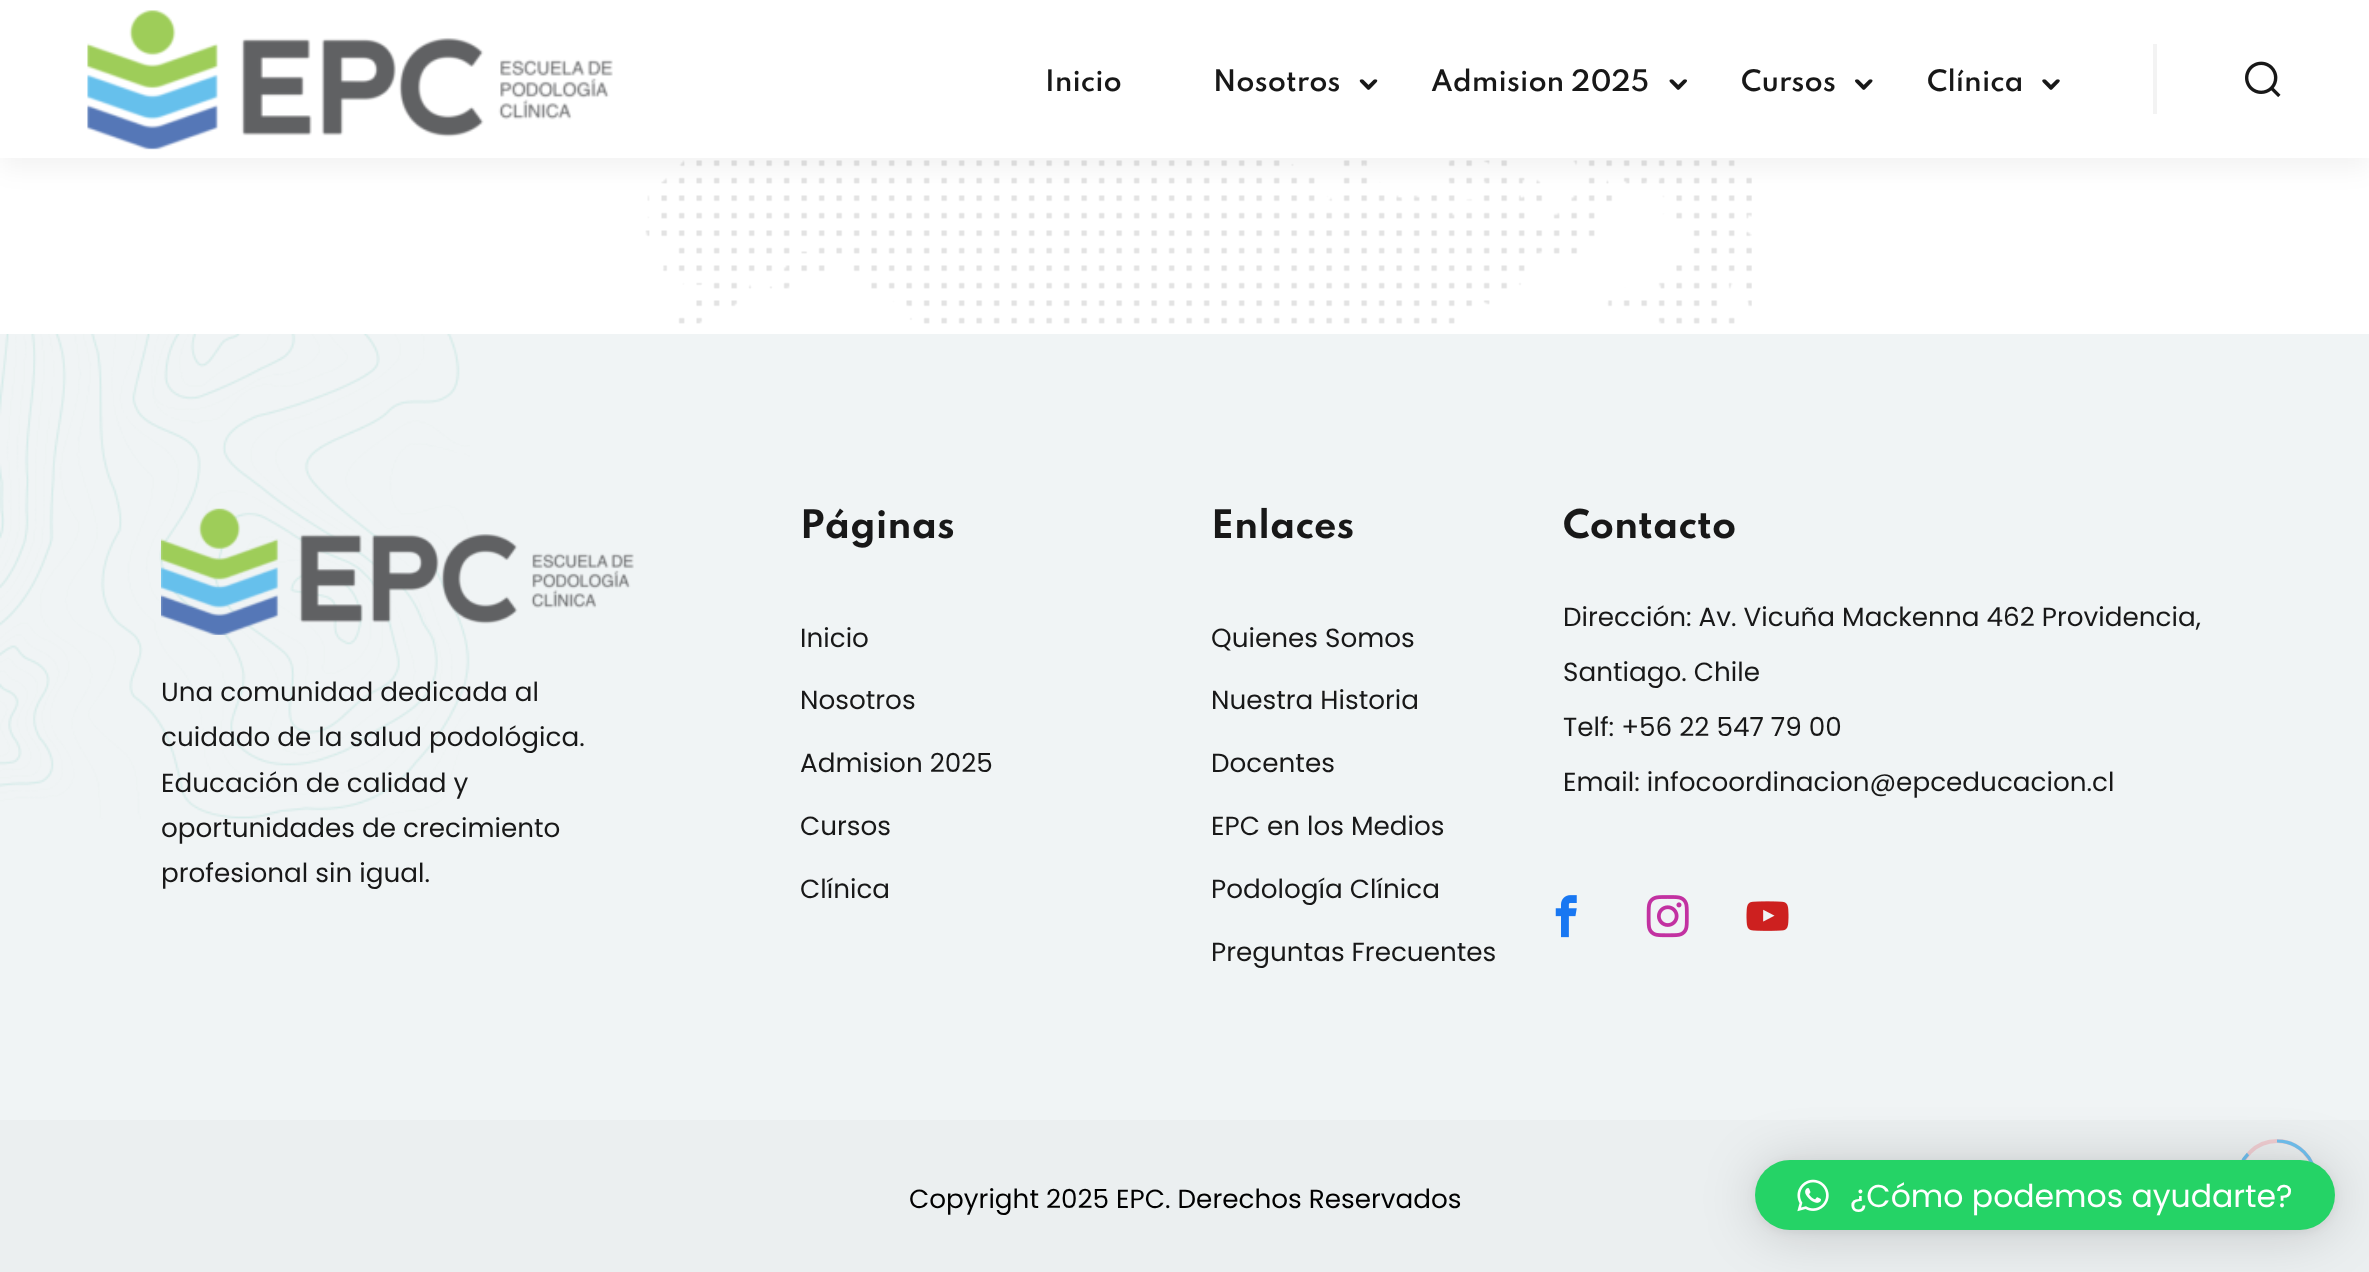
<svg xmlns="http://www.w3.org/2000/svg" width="2369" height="1272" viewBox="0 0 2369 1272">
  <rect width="100%" height="100%" fill="#fff"/>
  <image x="645" y="160" width="1107" height="164" href="img/7.png"/>
  <path d="M0 11h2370v157H0z" fill="#0000000d" filter="blur(13px)"/>
  <path d="M0 0h2369v158H0z" fill="#fff"/>
  <image x="87" y="10" width="526" height="140" href="img/1.png"/>
  <image x="1359" y="79" width="19" height="11" href="img/2.png"/>
  <image x="1669" y="79" width="18" height="11" href="img/3.png"/>
  <image x="1855" y="79" width="18" height="11" href="img/4.png"/>
  <image x="2042" y="79" width="18" height="11" href="img/5.png"/>
  <path d="M2153 44h4v70H2153z" fill="#f3f3f3"/>
  <image x="2245" y="61" width="36" height="37" href="img/6.png"/>
  <path d="M0 334h2369v786H0z" fill="#f0f4f5"/>
  <image x="0" y="334" width="470" height="485" href="img/8.png"/>
  <image x="161" y="508" width="473" height="127" href="img/9.png"/>
  <image x="1555" y="895" width="22" height="43" href="img/10.png"/>
  <image x="1646" y="895" width="43" height="43" href="img/11.png"/>
  <image x="1746" y="901" width="43" height="30" href="img/12.png"/>
  <path d="M0 1120h2369v152H0z" fill="#ebeff0"/>
  <rect x="2239" y="1141" width="76" height="77" rx="38" fill="none" stroke="#efcdd1" stroke-width="4"/>
  <path d="M2277 1141C2298 1141 2315.5 1158 2315.5 1179.5C2315.5 1201 2298 1218 2277 1218C2255.5 1218 2238 1201 2238 1179.5C2238 1169.5 2241.5 1160.5 2248 1154" fill="none" stroke="#6fc1ef" stroke-width="3.2"/>
  <rect x="1755" y="1164" width="580" height="70" rx="35" fill="#00000029" filter="blur(28px)"/>
  <rect x="1755" y="1162" width="580" height="70" rx="35" fill="#0000000f" filter="blur(5px)"/>
  <rect x="1755" y="1160" width="580" height="70" rx="35" fill="#25d366"/>
  <image x="1797" y="1179" width="32" height="33" href="img/13.png"/>
  <g font-family="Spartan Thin" font-size="26.25" font-weight="600" fill="#181818">
    <text x="1045" y="91">Inicio</text>
    <text x="1213" y="91">Nosotros</text>
    <text x="1431" y="91">Admision 2025</text>
    <text x="1741" y="91">Cursos</text>
    <text x="1927" y="91">Clínica</text>
  </g>
  <g font-family="Poppins" font-size="26.25" fill="#181818">
    <text x="161" y="701">Una comunidad dedicada al</text>
    <text x="161" y="746">cuidado de la salud podológica.</text>
    <text x="161" y="792">Educación de calidad y</text>
    <text x="161" y="837">oportunidades de crecimiento</text>
    <text x="161" y="882">profesional sin igual.</text>
  </g>
  <text x="800" y="538" font-family="Spartan Thin" font-size="35" font-weight="bold" fill="#181818">Páginas</text>
  <g font-family="Poppins" font-size="26.25" fill="#181818">
    <text x="800" y="647">Inicio</text>
    <text x="800" y="709">Nosotros</text>
    <text x="800" y="772">Admision 2025</text>
    <text x="800" y="835">Cursos</text>
    <text x="800" y="898">Clínica</text>
  </g>
  <text x="1211" y="538" font-family="Spartan Thin" font-size="35" font-weight="bold" fill="#181818">Enlaces</text>
  <g font-family="Poppins" font-size="26.25" fill="#181818">
    <text x="1211" y="647">Quienes Somos</text>
    <text x="1211" y="709">Nuestra Historia</text>
    <text x="1211" y="772">Docentes</text>
    <text x="1211" y="835">EPC en los Medios</text>
    <text x="1211" y="898">Podología Clínica</text>
    <text x="1211" y="961">Preguntas Frecuentes</text>
  </g>
  <text x="1563" y="538" font-family="Spartan Thin" font-size="35" font-weight="bold" fill="#181818">Contacto</text>
  <g font-family="Poppins" font-size="26.25" fill="#181818">
    <text x="1563" y="626">Dirección: Av. Vicuña Mackenna 462 Providencia,</text>
    <text x="1563" y="681">Santiago. Chile</text>
    <text x="1563" y="736">Telf: +56 22 547 79 00</text>
    <text x="1563" y="791">Email: infocoordinacion@epceducacion.cl</text>
  </g>
  <text x="909" y="1208" font-family="Poppins" font-size="26.25" fill="#000">Copyright 2025 EPC. Derechos Reservados</text>
  <text x="1850" y="1207" font-family="Poppins" font-size="31.5" fill="#fff">¿Cómo podemos ayudarte?</text>
</svg>
